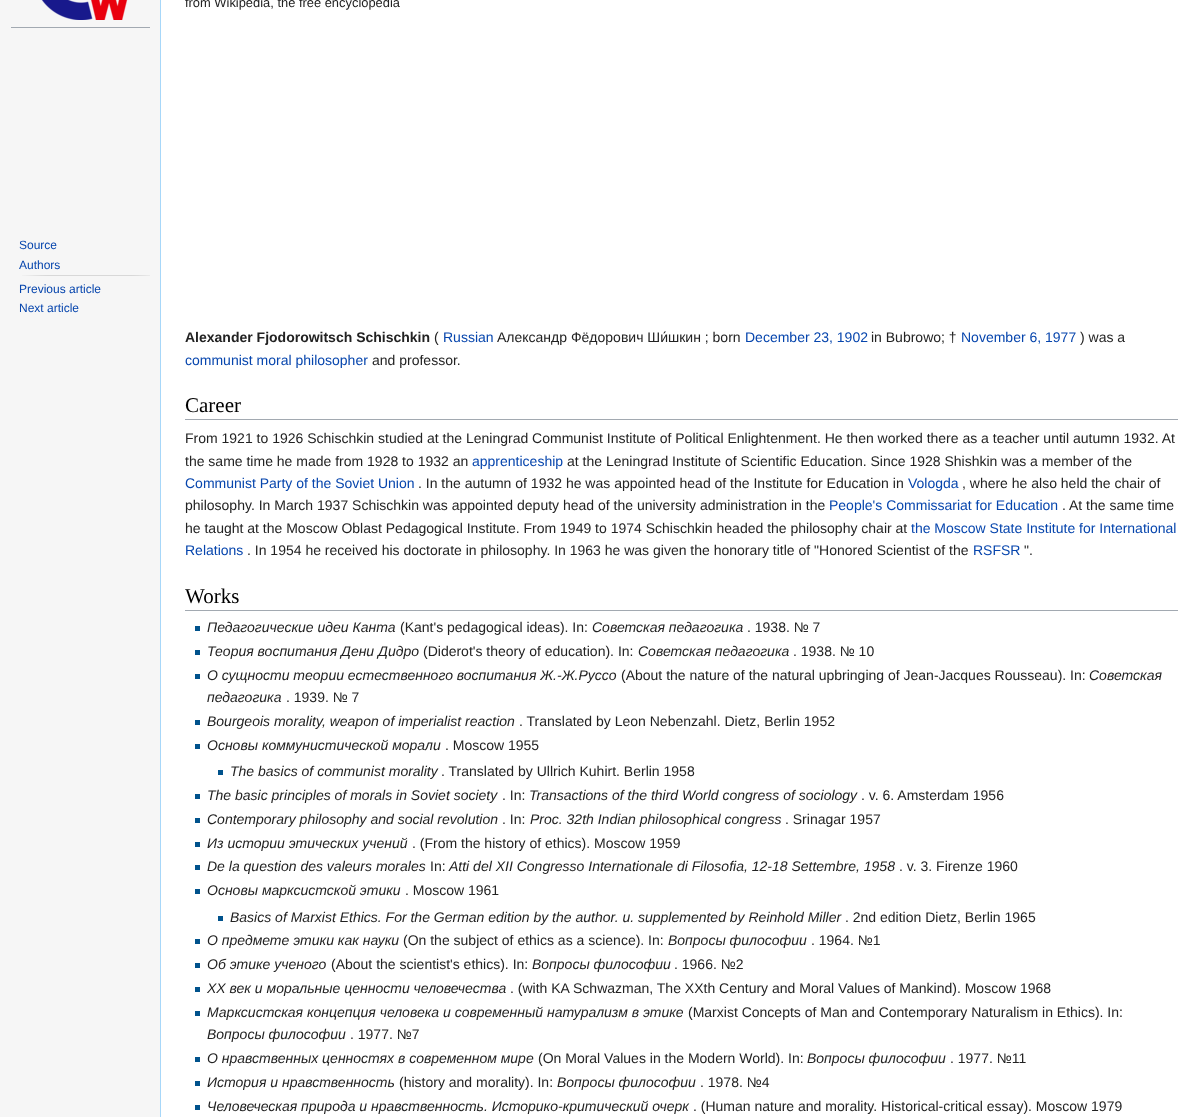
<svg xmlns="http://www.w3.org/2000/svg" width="1202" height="1117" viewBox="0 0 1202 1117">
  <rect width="100%" height="100%" fill="#f6f6f6"/>
  <image x="41" y="0" width="87" height="20" href="img/1.png"/>
  <path d="M11 27h139v1H11z" fill="#a2a9b1"/>
  <image x="22" y="275" width="128" height="1" href="img/2.png"/>
  <path d="M161 0h1041v1117H161z" fill="#fff"/>
  <path d="M160 0h1v1117H160z" fill="#a7d7f9"/>
  <path d="M185 419h993v1H185z" fill="#a2a9b1"/>
  <path d="M185 610h993v1H185z" fill="#a2a9b1"/>
  <path d="M195 626h5v5H195z" fill="#00528c"/>
  <path d="M195 650h5v5H195z" fill="#00528c"/>
  <path d="M195 674h5v5H195z" fill="#00528c"/>
  <path d="M195 720h5v5H195z" fill="#00528c"/>
  <path d="M195 744h5v5H195z" fill="#00528c"/>
  <path d="M218 770h5v5H218z" fill="#00528c"/>
  <path d="M195 794h5v5H195z" fill="#00528c"/>
  <path d="M195 818h5v5H195z" fill="#00528c"/>
  <path d="M195 842h5v5H195z" fill="#00528c"/>
  <path d="M195 865h5v5H195z" fill="#00528c"/>
  <path d="M195 889h5v5H195z" fill="#00528c"/>
  <path d="M218 916h5v5H218z" fill="#00528c"/>
  <path d="M195 939h5v5H195z" fill="#00528c"/>
  <path d="M195 963h5v5H195z" fill="#00528c"/>
  <path d="M195 987h5v5H195z" fill="#00528c"/>
  <path d="M195 1011h5v5H195z" fill="#00528c"/>
  <path d="M195 1057h5v5H195z" fill="#00528c"/>
  <path d="M195 1081h5v5H195z" fill="#00528c"/>
  <path d="M195 1105h5v5H195z" fill="#00528c"/>
  <g font-family="Liberation Sans" font-size="12" fill="#0645ad">
    <text x="19" y="249">Source</text>
    <text x="19" y="269">Authors</text>
    <text x="19" y="293">Previous article</text>
    <text x="19" y="312">Next article</text>
  </g>
  <text x="185" y="7" font-family="Liberation Sans" font-size="12.9" fill="#222">from Wikipedia, the free encyclopedia</text>
  <text x="185" y="342" font-family="Liberation Sans" font-size="14" font-weight="bold" fill="#222">Alexander Fjodorowitsch Schischkin</text>
  <text x="434" y="342" font-family="Liberation Sans" font-size="14" fill="#222">(</text>
  <text x="443" y="342" font-family="Liberation Sans" font-size="14" fill="#0645ad">Russian</text>
  <text x="497" y="342" font-family="Liberation Sans" font-size="14" fill="#222">Александр Фёдорович Ши́шкин ; born</text>
  <text x="745" y="342" font-family="Liberation Sans" font-size="14" fill="#0645ad">December 23, 1902</text>
  <text x="871" y="342" font-family="Liberation Sans" font-size="14" fill="#222">in Bubrowo; †</text>
  <text x="961" y="342" font-family="Liberation Sans" font-size="14" fill="#0645ad">November 6, 1977</text>
  <text x="1080" y="342" font-family="Liberation Sans" font-size="14" fill="#222">) was a</text>
  <text x="185" y="365" font-family="Liberation Sans" font-size="14" fill="#0645ad">communist moral philosopher</text>
  <text x="372" y="365" font-family="Liberation Sans" font-size="14" fill="#222">and professor.</text>
  <text x="185" y="412" font-family="Liberation Serif" font-size="21" fill="#000">Career</text>
  <g font-family="Liberation Sans" font-size="14" fill="#222">
    <text x="185" y="443">From 1921 to 1926 Schischkin studied at the Leningrad Communist Institute of Political Enlightenment. He then worked there as a teacher until autumn 1932. At</text>
    <text x="185" y="466">the same time he made from 1928 to 1932 an</text>
  </g>
  <text x="472" y="466" font-family="Liberation Sans" font-size="14" fill="#0645ad">apprenticeship</text>
  <text x="567" y="466" font-family="Liberation Sans" font-size="14" fill="#222">at the Leningrad Institute of Scientific Education. Since 1928 Shishkin was a member of the</text>
  <text x="185" y="488" font-family="Liberation Sans" font-size="14" fill="#0645ad">Communist Party of the Soviet Union</text>
  <text x="418" y="488" font-family="Liberation Sans" font-size="14" fill="#222">. In the autumn of 1932 he was appointed head of the Institute for Education in</text>
  <text x="908" y="488" font-family="Liberation Sans" font-size="14" fill="#0645ad">Vologda</text>
  <g font-family="Liberation Sans" font-size="14" fill="#222">
    <text x="962" y="488">, where he also held the chair of</text>
    <text x="185" y="510">philosophy. In March 1937 Schischkin was appointed deputy head of the university administration in the</text>
  </g>
  <text x="829" y="510" font-family="Liberation Sans" font-size="14" fill="#0645ad">People's Commissariat for Education</text>
  <g font-family="Liberation Sans" font-size="14" fill="#222">
    <text x="1062" y="510">. At the same time</text>
    <text x="185" y="533">he taught at the Moscow Oblast Pedagogical Institute. From 1949 to 1974 Schischkin headed the philosophy chair at</text>
  </g>
  <g font-family="Liberation Sans" font-size="14" fill="#0645ad">
    <text x="911" y="533">the Moscow State Institute for International</text>
    <text x="185" y="555">Relations</text>
  </g>
  <text x="247" y="555" font-family="Liberation Sans" font-size="14" fill="#222">. In 1954 he received his doctorate in philosophy. In 1963 he was given the honorary title of "Honored Scientist of the</text>
  <text x="973" y="555" font-family="Liberation Sans" font-size="14" fill="#0645ad">RSFSR</text>
  <text x="1024" y="555" font-family="Liberation Sans" font-size="14" fill="#222">".</text>
  <text x="185" y="603" font-family="Liberation Serif" font-size="21" fill="#000">Works</text>
  <text x="207" y="632" font-family="Liberation Sans" font-size="14" font-style="italic" fill="#222">Педагогические идеи Канта</text>
  <text x="400" y="632" font-family="Liberation Sans" font-size="14" fill="#222">(Kant's pedagogical ideas). In:</text>
  <text x="592" y="632" font-family="Liberation Sans" font-size="14" font-style="italic" fill="#222">Советская педагогика</text>
  <text x="747" y="632" font-family="Liberation Sans" font-size="14" fill="#222">. 1938. № 7</text>
  <text x="207" y="656" font-family="Liberation Sans" font-size="14" font-style="italic" fill="#222">Теория воспитания Дени Дидро</text>
  <text x="423" y="656" font-family="Liberation Sans" font-size="14" fill="#222">(Diderot's theory of education). In:</text>
  <text x="638" y="656" font-family="Liberation Sans" font-size="14" font-style="italic" fill="#222">Советская педагогика</text>
  <text x="793" y="656" font-family="Liberation Sans" font-size="14" fill="#222">. 1938. № 10</text>
  <text x="207" y="680" font-family="Liberation Sans" font-size="14" font-style="italic" fill="#222">О сущности теории естественного воспитания Ж.-Ж.Руссо</text>
  <text x="621" y="680" font-family="Liberation Sans" font-size="14" fill="#222">(About the nature of the natural upbringing of Jean-Jacques Rousseau). In:</text>
  <g font-family="Liberation Sans" font-size="14" font-style="italic" fill="#222">
    <text x="1089" y="680">Советская</text>
    <text x="207" y="702">педагогика</text>
  </g>
  <text x="286" y="702" font-family="Liberation Sans" font-size="14" fill="#222">. 1939. № 7</text>
  <text x="207" y="726" font-family="Liberation Sans" font-size="14" font-style="italic" fill="#222">Bourgeois morality, weapon of imperialist reaction</text>
  <text x="519" y="726" font-family="Liberation Sans" font-size="14" fill="#222">. Translated by Leon Nebenzahl. Dietz, Berlin 1952</text>
  <text x="207" y="750" font-family="Liberation Sans" font-size="14" font-style="italic" fill="#222">Основы коммунистической морали</text>
  <text x="445" y="750" font-family="Liberation Sans" font-size="14" fill="#222">. Moscow 1955</text>
  <text x="230" y="776" font-family="Liberation Sans" font-size="14" font-style="italic" fill="#222">The basics of communist morality</text>
  <text x="441" y="776" font-family="Liberation Sans" font-size="14" fill="#222">. Translated by Ullrich Kuhirt. Berlin 1958</text>
  <text x="207" y="800" font-family="Liberation Sans" font-size="14" font-style="italic" fill="#222">The basic principles of morals in Soviet society</text>
  <text x="502" y="800" font-family="Liberation Sans" font-size="14" fill="#222">. In:</text>
  <text x="529" y="800" font-family="Liberation Sans" font-size="14" font-style="italic" fill="#222">Transactions of the third World congress of sociology</text>
  <text x="861" y="800" font-family="Liberation Sans" font-size="14" fill="#222">. v. 6. Amsterdam 1956</text>
  <text x="207" y="824" font-family="Liberation Sans" font-size="14" font-style="italic" fill="#222">Contemporary philosophy and social revolution</text>
  <text x="502" y="824" font-family="Liberation Sans" font-size="14" fill="#222">. In:</text>
  <text x="530" y="824" font-family="Liberation Sans" font-size="14" font-style="italic" fill="#222">Proc. 32th Indian philosophical congress</text>
  <text x="785" y="824" font-family="Liberation Sans" font-size="14" fill="#222">. Srinagar 1957</text>
  <text x="207" y="848" font-family="Liberation Sans" font-size="14" font-style="italic" fill="#222">Из истории этических учений</text>
  <text x="412" y="848" font-family="Liberation Sans" font-size="14" fill="#222">. (From the history of ethics). Moscow 1959</text>
  <text x="207" y="871" font-family="Liberation Sans" font-size="14" font-style="italic" fill="#222">De la question des valeurs morales</text>
  <text x="430" y="871" font-family="Liberation Sans" font-size="14" fill="#222">In:</text>
  <text x="449" y="871" font-family="Liberation Sans" font-size="14" font-style="italic" fill="#222">Atti del XII Congresso Internationale di Filosofia, 12-18 Settembre, 1958</text>
  <text x="899" y="871" font-family="Liberation Sans" font-size="14" fill="#222">. v. 3. Firenze 1960</text>
  <text x="207" y="895" font-family="Liberation Sans" font-size="14" font-style="italic" fill="#222">Основы марксистской этики</text>
  <text x="405" y="895" font-family="Liberation Sans" font-size="14" fill="#222">. Moscow 1961</text>
  <text x="230" y="922" font-family="Liberation Sans" font-size="14" font-style="italic" fill="#222">Basics of Marxist Ethics. For the German edition by the author. u. supplemented by Reinhold Miller</text>
  <text x="845" y="922" font-family="Liberation Sans" font-size="14" fill="#222">. 2nd edition Dietz, Berlin 1965</text>
  <text x="207" y="945" font-family="Liberation Sans" font-size="14" font-style="italic" fill="#222">О предмете этики как науки</text>
  <text x="403" y="945" font-family="Liberation Sans" font-size="14" fill="#222">(On the subject of ethics as a science). In:</text>
  <text x="668" y="945" font-family="Liberation Sans" font-size="14" font-style="italic" fill="#222">Вопросы философии</text>
  <text x="811" y="945" font-family="Liberation Sans" font-size="14" fill="#222">. 1964. №1</text>
  <text x="207" y="969" font-family="Liberation Sans" font-size="14" font-style="italic" fill="#222">Об этике ученого</text>
  <text x="331" y="969" font-family="Liberation Sans" font-size="14" fill="#222">(About the scientist's ethics). In:</text>
  <text x="532" y="969" font-family="Liberation Sans" font-size="14" font-style="italic" fill="#222">Вопросы философии</text>
  <text x="674" y="969" font-family="Liberation Sans" font-size="14" fill="#222">. 1966. №2</text>
  <text x="207" y="993" font-family="Liberation Sans" font-size="14" font-style="italic" fill="#222">XX век и моральные ценности человечества</text>
  <text x="510" y="993" font-family="Liberation Sans" font-size="14" fill="#222">. (with KA Schwazman, The XXth Century and Moral Values of Mankind). Moscow 1968</text>
  <text x="207" y="1017" font-family="Liberation Sans" font-size="14" font-style="italic" fill="#222">Марксистская концепция человека и современный натурализм в этике</text>
  <text x="688" y="1017" font-family="Liberation Sans" font-size="14" fill="#222">(Marxist Concepts of Man and Contemporary Naturalism in Ethics). In:</text>
  <text x="207" y="1039" font-family="Liberation Sans" font-size="14" font-style="italic" fill="#222">Вопросы философии</text>
  <text x="350" y="1039" font-family="Liberation Sans" font-size="14" fill="#222">. 1977. №7</text>
  <text x="207" y="1063" font-family="Liberation Sans" font-size="14" font-style="italic" fill="#222">О нравственных ценностях в современном мире</text>
  <text x="538" y="1063" font-family="Liberation Sans" font-size="14" fill="#222">(On Moral Values in the Modern World). In:</text>
  <text x="807" y="1063" font-family="Liberation Sans" font-size="14" font-style="italic" fill="#222">Вопросы философии</text>
  <text x="950" y="1063" font-family="Liberation Sans" font-size="14" fill="#222">. 1977. №11</text>
  <text x="207" y="1087" font-family="Liberation Sans" font-size="14" font-style="italic" fill="#222">История и нравственность</text>
  <text x="399" y="1087" font-family="Liberation Sans" font-size="14" fill="#222">(history and morality). In:</text>
  <text x="557" y="1087" font-family="Liberation Sans" font-size="14" font-style="italic" fill="#222">Вопросы философии</text>
  <text x="700" y="1087" font-family="Liberation Sans" font-size="14" fill="#222">. 1978. №4</text>
  <text x="207" y="1111" font-family="Liberation Sans" font-size="14" font-style="italic" fill="#222">Человеческая природа и нравственность. Историко-критический очерк</text>
  <text x="693" y="1111" font-family="Liberation Sans" font-size="14" fill="#222">. (Human nature and morality. Historical-critical essay). Moscow 1979</text>
</svg>
